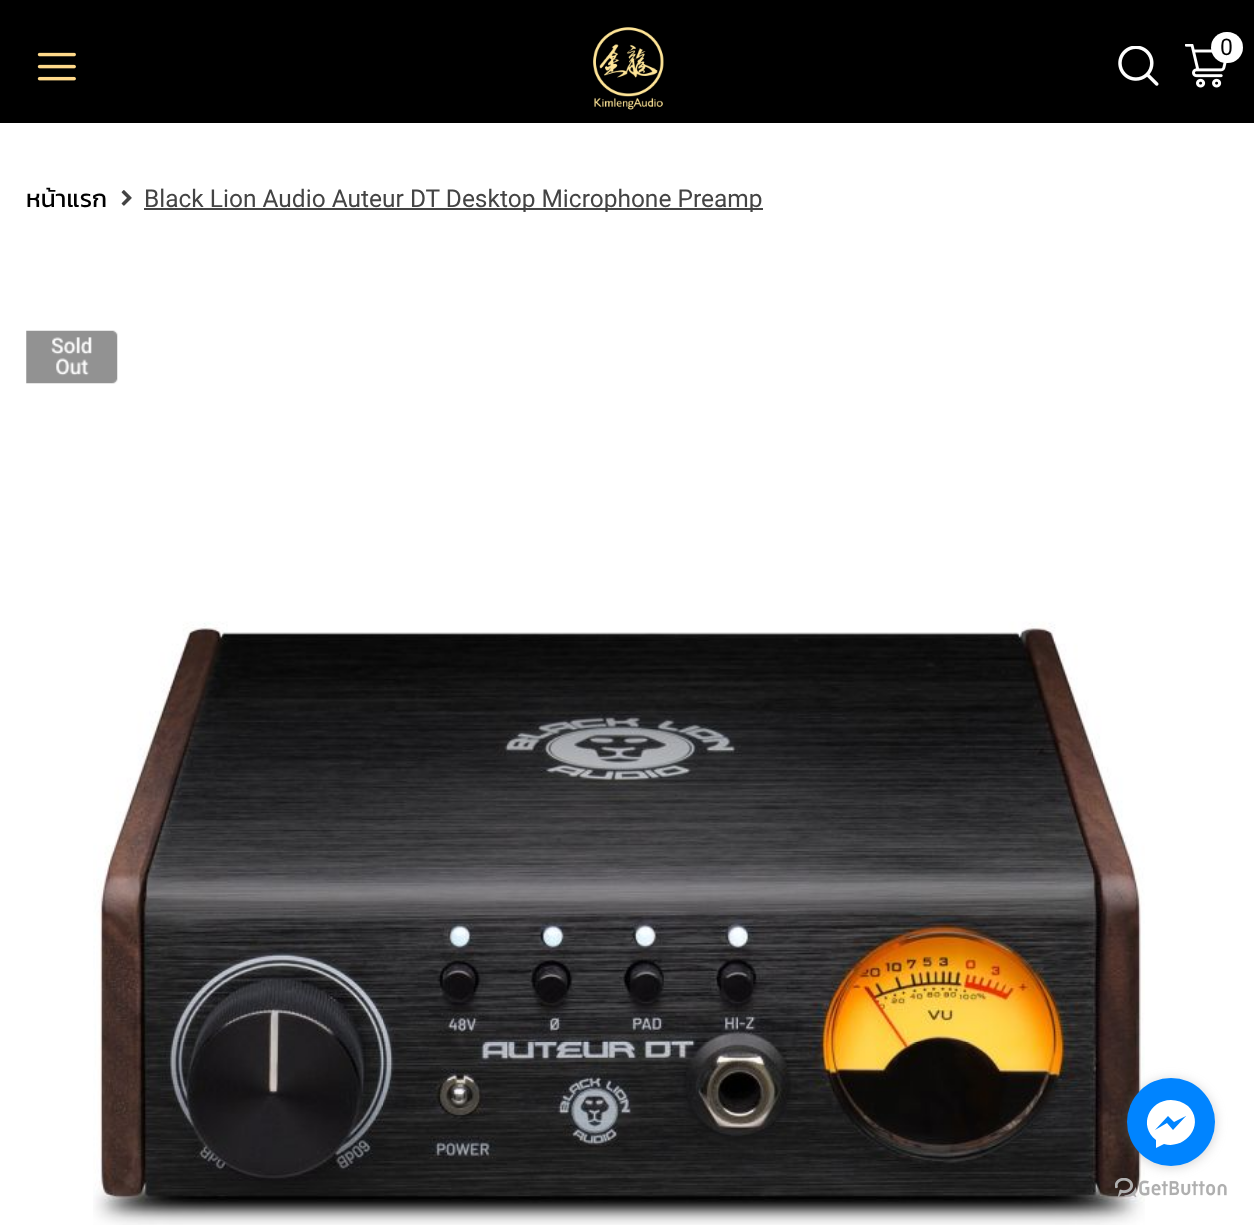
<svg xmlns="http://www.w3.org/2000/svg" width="1254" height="1225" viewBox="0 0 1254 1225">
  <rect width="100%" height="100%" fill="#fff"/>
  <path d="M0 0h1254v123H0z" fill="#000"/>
  <image x="593" y="27" width="71" height="83" href="img/1.png"/>
  <image x="1118" y="46" width="41" height="40" href="img/2.png"/>
  <image x="1185" y="44" width="42" height="44" href="img/3.png"/>
  <rect x="1211" y="32" width="32" height="31" rx="15.5" fill="#fff"/>
  <image x="37" y="52" width="39" height="29" href="img/4.png"/>
  <image x="121" y="190" width="11" height="16" href="img/5.png"/>
  <path d="M144 208h619v2H144z" fill="#444"/>
  <image x="26" y="330" width="92" height="54" href="img/6.png"/>
  <image x="93" y="621" width="1052" height="604" href="img/7.png"/>
  <image x="1115" y="1178" width="112" height="19" href="img/8.png"/>
  <rect x="1127" y="1080" width="88" height="87" rx="43.5" fill="#88888866" filter="blur(6px)"/>
  <circle cx="1171" cy="1122" r="44" fill="#0084ff"/>
  <path d="M1171 1100C1149 1100 1138 1126 1156 1140V1148L1164 1144C1186 1150 1206 1124 1188 1106C1183 1102 1177 1100 1171 1100ZM1173 1130L1167 1123L1155 1130L1168 1116L1174 1122L1186 1116Z" fill="#fff"/>
  <text x="1220" y="55" font-family="Roboto" font-size="23" fill="#000">0</text>
  <text x="26" y="207" font-family="Kanit" font-size="24.5" fill="#000">หน้าแรก</text>
  <text x="144" y="207" font-family="Roboto" font-size="24.5" fill="#444">Black Lion Audio Auteur DT Desktop Microphone Preamp</text>
</svg>
